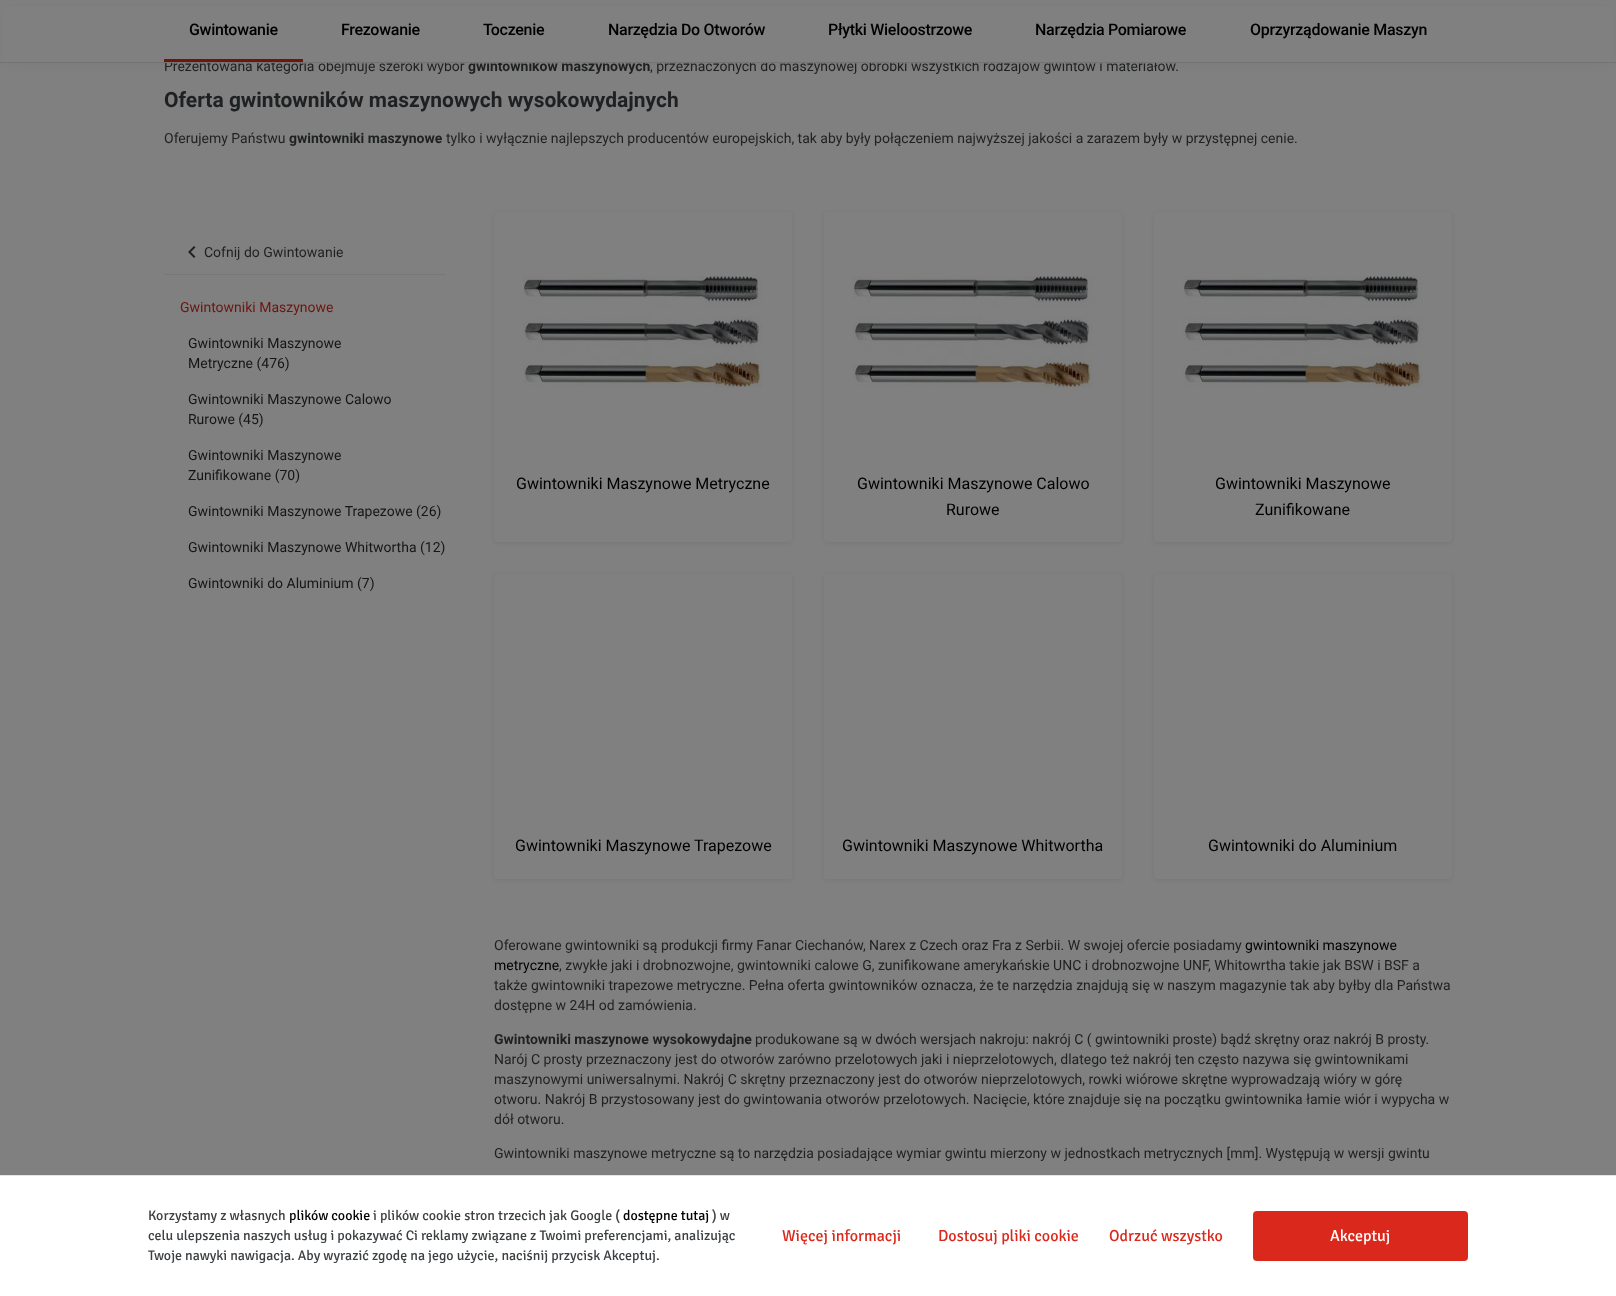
<svg xmlns="http://www.w3.org/2000/svg" width="1616" height="1296" viewBox="0 0 1616 1296">
  <rect width="100%" height="100%" fill="#808080"/>
  <path d="M8 12h1600v47H8z" fill="#00000014" filter="blur(8px)"/>
  <path d="M164 274h282v1H164z" fill="#787878"/>
  <image x="188" y="246" width="8" height="12" href="img/1.png"/>
  <rect x="494" y="213" width="298" height="330" rx="4" fill="#00000014" filter="blur(2px)"/>
  <rect x="494" y="212" width="298" height="330" rx="4" fill="#808080"/>
  <image x="523" y="276" width="240" height="112" href="img/2.png"/>
  <rect x="824" y="213" width="298" height="330" rx="4" fill="#00000014" filter="blur(2px)"/>
  <rect x="824" y="212" width="298" height="330" rx="4" fill="#808080"/>
  <image x="853" y="276" width="240" height="112" href="img/2.png"/>
  <rect x="1154" y="213" width="298" height="330" rx="4" fill="#00000014" filter="blur(2px)"/>
  <rect x="1154" y="212" width="298" height="330" rx="4" fill="#808080"/>
  <image x="1183" y="276" width="240" height="112" href="img/2.png"/>
  <rect x="494" y="575" width="298" height="305" rx="4" fill="#00000014" filter="blur(2px)"/>
  <rect x="494" y="574" width="298" height="305" rx="4" fill="#808080"/>
  <rect x="824" y="575" width="298" height="305" rx="4" fill="#00000014" filter="blur(2px)"/>
  <rect x="824" y="574" width="298" height="305" rx="4" fill="#808080"/>
  <rect x="1154" y="575" width="298" height="305" rx="4" fill="#00000014" filter="blur(2px)"/>
  <rect x="1154" y="574" width="298" height="305" rx="4" fill="#808080"/>
  <path d="M0 1176h1616v120H0z" fill="#fff"/>
  <path d="M0 1175h1616v1H0z" fill="#e5e5e5"/>
  <rect x="1253" y="1211" width="215" height="50" rx="4" fill="#da291c"/>
  <text x="164" y="71" font-family="Roboto" font-size="14" fill="#1e2022">Prezentowana kategoria obejmuje szeroki wybór</text>
  <text x="468" y="71" font-family="Roboto" font-size="14" font-weight="bold" fill="#1e2022">gwintowników maszynowych</text>
  <text x="650" y="71" font-family="Roboto" font-size="14" fill="#1e2022">, przeznaczonych do maszynowej obróbki wszystkich rodzajów gwintów i materiałów.</text>
  <path d="M3 7h1610v55H3z" fill="#808080"/>
  <g font-family="Roboto" font-size="16" font-weight="500" letter-spacing="-0.3" fill="#000">
    <text x="1250" y="35">Oprzyrządowanie Maszyn</text>
    <text x="1035" y="35">Narzędzia Pomiarowe</text>
    <text x="828" y="35">Płytki Wieloostrzowe</text>
    <text x="608" y="35">Narzędzia Do Otworów</text>
    <text x="483" y="35">Toczenie</text>
    <text x="341" y="35">Frezowanie</text>
    <text x="189" y="35">Gwintowanie</text>
  </g>
  <path d="M164 59h139v3H164z" fill="#6d150e"/>
  <path d="M0 62h1616v1H0z" fill="#737373"/>
  <text x="164" y="107" font-family="Roboto" font-size="21" font-weight="bold" fill="#1e2022">Oferta gwintowników maszynowych wysokowydajnych</text>
  <text x="164" y="143" font-family="Roboto" font-size="14" fill="#1e2022">Oferujemy Państwu</text>
  <text x="289" y="143" font-family="Roboto" font-size="14" font-weight="bold" fill="#1e2022">gwintowniki maszynowe</text>
  <g font-family="Roboto" font-size="14" fill="#1e2022">
    <text x="446" y="143">tylko i wyłącznie najlepszych producentów europejskich, tak aby były połączeniem najwyższej jakości a zarazem były w przystępnej cenie.</text>
    <text x="204" y="257">Cofnij do Gwintowanie</text>
  </g>
  <text x="180" y="312" font-family="Roboto" font-size="14" fill="#6d150e">Gwintowniki Maszynowe</text>
  <g font-family="Roboto" font-size="14" fill="#161616">
    <text x="188" y="348">Gwintowniki Maszynowe</text>
    <text x="188" y="368">Metryczne (476)</text>
    <text x="188" y="404">Gwintowniki Maszynowe Calowo</text>
    <text x="188" y="424">Rurowe (45)</text>
    <text x="188" y="460">Gwintowniki Maszynowe</text>
    <text x="188" y="480">Zunifikowane (70)</text>
    <text x="188" y="516">Gwintowniki Maszynowe Trapezowe (26)</text>
    <text x="188" y="552">Gwintowniki Maszynowe Whitwortha (12)</text>
    <text x="188" y="588">Gwintowniki do Aluminium (7)</text>
  </g>
  <g font-family="Roboto" font-size="16" fill="#000">
    <text x="516" y="489">Gwintowniki Maszynowe Metryczne</text>
    <text x="857" y="489">Gwintowniki Maszynowe Calowo</text>
    <text x="946" y="515">Rurowe</text>
    <text x="1215" y="489">Gwintowniki Maszynowe</text>
    <text x="1255" y="515">Zunifikowane</text>
    <text x="515" y="851">Gwintowniki Maszynowe Trapezowe</text>
    <text x="842" y="851">Gwintowniki Maszynowe Whitwortha</text>
    <text x="1208" y="851">Gwintowniki do Aluminium</text>
  </g>
  <text x="494" y="950" font-family="Roboto" font-size="14" fill="#1e2022">Oferowane gwintowniki są produkcji firmy Fanar Ciechanów, Narex z Czech oraz Fra z Serbii. W swojej ofercie posiadamy</text>
  <g font-family="Roboto" font-size="14" fill="#000">
    <text x="1245" y="950">gwintowniki maszynowe</text>
    <text x="494" y="970">metryczne</text>
  </g>
  <g font-family="Roboto" font-size="14" fill="#1e2022">
    <text x="559" y="970">, zwykłe jaki i drobnozwojne, gwintowniki calowe G, zunifikowane amerykańskie UNC i drobnozwojne UNF, Whitowrtha takie jak BSW i BSF a</text>
    <text x="494" y="990">także gwintowniki trapezowe metryczne. Pełna oferta gwintowników oznacza, że te narzędzia znajdują się w naszym magazynie tak aby byłby dla Państwa</text>
    <text x="494" y="1010">dostępne w 24H od zamówienia.</text>
  </g>
  <text x="494" y="1044" font-family="Roboto" font-size="14" font-weight="bold" fill="#1e2022">Gwintowniki maszynowe wysokowydajne</text>
  <g font-family="Roboto" font-size="14" fill="#1e2022">
    <text x="755" y="1044">produkowane są w dwóch wersjach nakroju: nakrój C ( gwintowniki proste) bądź skrętny oraz nakrój B prosty.</text>
    <text x="494" y="1064">Narój C prosty przeznaczony jest do otworów zarówno przelotowych jaki i nieprzelotowych, dlatego też nakrój ten często nazywa się gwintownikami</text>
    <text x="494" y="1084">maszynowymi uniwersalnymi. Nakrój C skrętny przeznaczony jest do otworów nieprzelotowych, rowki wiórowe skrętne wyprowadzają wióry w górę</text>
    <text x="494" y="1104">otworu. Nakrój B przystosowany jest do gwintowania otworów przelotowych. Nacięcie, które znajduje się na początku gwintownika łamie wiór i wypycha w</text>
    <text x="494" y="1124">dół otworu.</text>
    <text x="494" y="1158">Gwintowniki maszynowe metryczne są to narzędzia posiadające wymiar gwintu mierzony w jednostkach metrycznych [mm]. Występują w wersji gwintu</text>
  </g>
  <text x="148" y="1220" font-family="Signika" font-size="14" fill="#3c4043">Korzystamy z własnych</text>
  <text x="289" y="1220" font-family="Signika" font-size="14" fill="#000">plików cookie</text>
  <text x="373" y="1220" font-family="Signika" font-size="14" fill="#3c4043">i plików cookie stron trzecich jak Google (</text>
  <text x="623" y="1220" font-family="Signika" font-size="14" fill="#000">dostępne tutaj</text>
  <g font-family="Signika" font-size="14" fill="#3c4043">
    <text x="712" y="1220">) w</text>
    <text x="148" y="1240">celu ulepszenia naszych usług i pokazywać Ci reklamy związane z Twoimi preferencjami, analizując</text>
    <text x="148" y="1260">Twoje nawyki nawigacja. Aby wyrazić zgodę na jego użycie, naciśnij przycisk Akceptuj.</text>
  </g>
  <g font-family="Signika" font-size="16" fill="#da291c">
    <text x="782" y="1241">Więcej informacji</text>
    <text x="938" y="1241">Dostosuj pliki cookie</text>
    <text x="1109" y="1241">Odrzuć wszystko</text>
  </g>
  <text x="1330" y="1241" font-family="Signika" font-size="16" fill="#fff">Akceptuj</text>
</svg>
